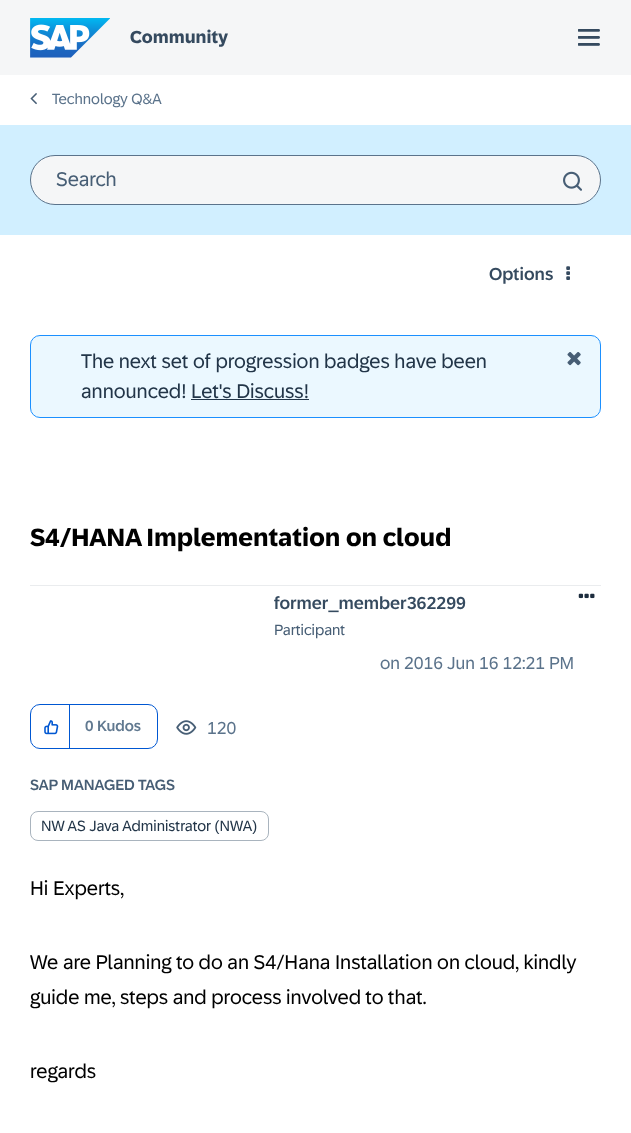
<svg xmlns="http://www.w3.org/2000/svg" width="631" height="1133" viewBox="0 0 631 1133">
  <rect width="100%" height="100%" fill="#fff"/>
  <path d="M0 0h631v75H0z" fill="#f5f6f7"/>
  <image x="30" y="18" width="80" height="40" href="img/1.png"/>
  <image x="578" y="29" width="22" height="17" href="img/2.png"/>
  <image x="30" y="93" width="7" height="12" href="img/3.png"/>
  <path d="M0 125h631v110H0z" fill="#d1efff"/>
  <rect x="30.5" y="155.5" width="570" height="49" rx="24.5" fill="#f5f6f7" stroke="#5b738b"/>
  <image x="563" y="171" width="19" height="20" href="img/4.png"/>
  <image x="566" y="266" width="4" height="14" href="img/5.png"/>
  <rect x="30.5" y="335.5" width="570" height="82" rx="9.5" fill="#ebf8ff" stroke="#1b90ff"/>
  <path d="M191 399h118v1H191z" fill="#223548"/>
  <image x="567" y="352" width="14" height="14" href="img/6.png"/>
  <path d="M30 585h571v1H30z" fill="#eaecee"/>
  <image x="578" y="593" width="17" height="6" href="img/7.png"/>
  <rect x="30.5" y="704.5" width="127" height="44" rx="9.5" fill="none" stroke="#0057d2"/>
  <path d="M69 705h1v44H69z" fill="#0057d2"/>
  <image x="44" y="720" width="15" height="15" href="img/8.png"/>
  <image x="176" y="720" width="21" height="15" href="img/9.png"/>
  <rect x="30.5" y="811.5" width="238" height="29" rx="7.5" fill="none" stroke="#a9b4be"/>
  <text x="130" y="43" font-family="'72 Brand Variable'" font-size="17.5" font-weight="bold" fill="#354a5f">Community</text>
  <text x="52" y="104" font-family="'72 Brand Variable'" font-size="15" fill="#5b738b">Technology Q&amp;A</text>
  <text x="56" y="186" font-family="'72 Brand Variable'" font-size="20" fill="#475e75">Search</text>
  <text x="489" y="280" font-family="'72 Brand Variable'" font-size="17.5" font-weight="500" fill="#354a5f">Options</text>
  <g font-family="'72 Brand Variable'" font-size="20" fill="#223548">
    <text x="81" y="368">The next set of progression badges have been</text>
    <text x="81" y="398">announced! Let's Discuss!</text>
  </g>
  <text x="30" y="546" font-family="'72 Brand Variable'" font-size="25" font-weight="bold" fill="#000">S4/HANA Implementation on cloud</text>
  <text x="274" y="609" font-family="'72 Brand Variable'" font-size="17.5" font-weight="500" fill="#354a5f">former_member362299</text>
  <text x="274" y="635" font-family="'72 Brand Variable'" font-size="15" fill="#475e75">Participant</text>
  <text x="380" y="669" font-family="'72 Brand Variable'" font-size="17.5" fill="#5b738b">on 2016 Jun 16 12:21 PM</text>
  <text x="85" y="731" font-family="'72 Brand Variable'" font-size="15" font-weight="500" fill="#617990">0 Kudos</text>
  <text x="207" y="734" font-family="'72 Brand Variable'" font-size="17.5" fill="#5b738b">120</text>
  <text x="30" y="790" font-family="'72 Brand Variable'" font-size="15" font-weight="500" fill="#475e75">SAP MANAGED TAGS</text>
  <text x="41" y="831" font-family="'72 Brand Variable'" font-size="15" fill="#223548">NW AS Java Administrator (NWA)</text>
  <g font-family="'72 Brand Variable'" font-size="20" fill="#000">
    <text x="30" y="895">Hi Experts,</text>
    <text x="30" y="969">We are Planning to do an S4/Hana Installation on cloud, kindly</text>
    <text x="30" y="1004">guide me, steps and process involved to that.</text>
    <text x="30" y="1078">regards</text>
  </g>
</svg>
